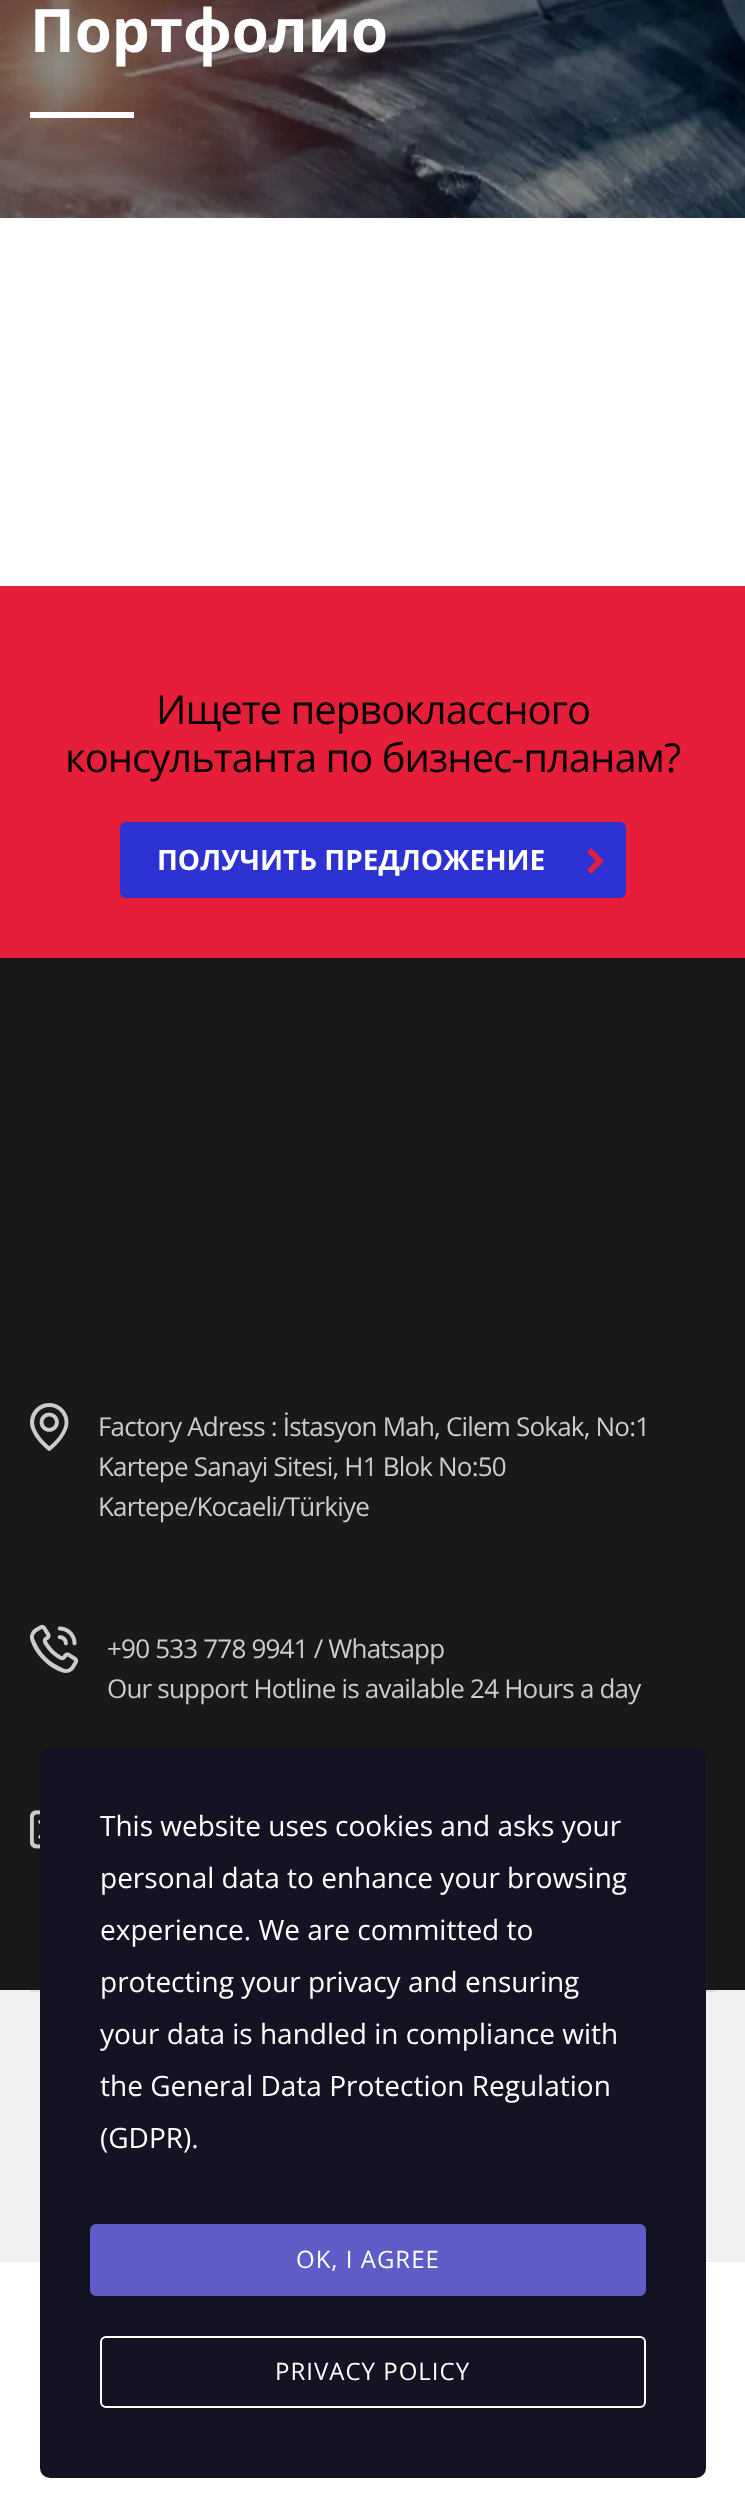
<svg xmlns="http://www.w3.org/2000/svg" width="745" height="2517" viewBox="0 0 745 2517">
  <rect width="100%" height="100%" fill="#fff"/>
  <image x="0" y="0" width="745" height="218" href="img/1.png"/>
  <path d="M30 112h104v6H30z" fill="#fff"/>
  <path d="M0 586h745v372H0z" fill="#e61e3a"/>
  <rect x="120" y="822" width="506" height="76" rx="6" fill="#2c33d2"/>
  <image x="587" y="848" width="17" height="26" href="img/2.png"/>
  <path d="M0 958h745v1032H0z" fill="#191919"/>
  <image x="30" y="1403" width="39" height="48" href="img/3.png"/>
  <image x="30" y="1624" width="49" height="49" href="img/4.png"/>
  <image x="30" y="1810" width="10" height="39" href="img/5.png"/>
  <path d="M0 1990h745v272H0z" fill="#f0f1f3"/>
  <path d="M30 1990h686v2H30z" fill="#dedfe0"/>
  <rect x="40" y="1748" width="666" height="730" rx="10" fill="#131323"/>
  <rect x="91" y="2225" width="554" height="70" rx="5" fill="#5e5cc7" stroke="#5e5cc7" stroke-width="2"/>
  <rect x="101" y="2337" width="544" height="70" rx="5" fill="none" stroke="#fff" stroke-width="2"/>
  <text x="30" y="52" font-family="Open Sans" font-size="60" font-weight="bold" fill="#fff">Портфолио</text>
  <g font-family="Open Sans" font-size="40" letter-spacing="-1" fill="#000">
    <text x="156" y="724">Ищете первоклассного</text>
    <text x="65" y="772">консультанта по бизнес-планам?</text>
  </g>
  <text x="157" y="870" font-family="Open Sans" font-size="28" font-weight="bold" fill="#fff">ПОЛУЧИТЬ ПРЕДЛОЖЕНИЕ</text>
  <g font-family="Open Sans" font-size="26" letter-spacing="-0.8" fill="#ccc">
    <text x="98" y="1436">Factory Adress : İstasyon Mah, Cilem Sokak, No:1</text>
    <text x="98" y="1476">Kartepe Sanayi Sitesi, H1 Blok No:50</text>
    <text x="98" y="1516">Kartepe/Kocaeli/Türkiye</text>
    <text x="107" y="1658">+90 533 778 9941 / Whatsapp</text>
    <text x="107" y="1698">Our support Hotline is available 24 Hours a day</text>
  </g>
  <g font-family="Open Sans" font-size="28" fill="#fff">
    <text x="100" y="1836">This website uses cookies and asks your</text>
    <text x="100" y="1888">personal data to enhance your browsing</text>
    <text x="100" y="1940">experience. We are committed to</text>
    <text x="100" y="1992">protecting your privacy and ensuring</text>
    <text x="100" y="2044">your data is handled in compliance with</text>
    <text x="100" y="2096">the General Data Protection Regulation</text>
    <text x="100" y="2148">(GDPR).</text>
  </g>
  <g font-family="Open Sans" font-size="24" letter-spacing="1" fill="#fff">
    <text x="296" y="2268">OK, I AGREE</text>
    <text x="275" y="2380">PRIVACY POLICY</text>
  </g>
</svg>
